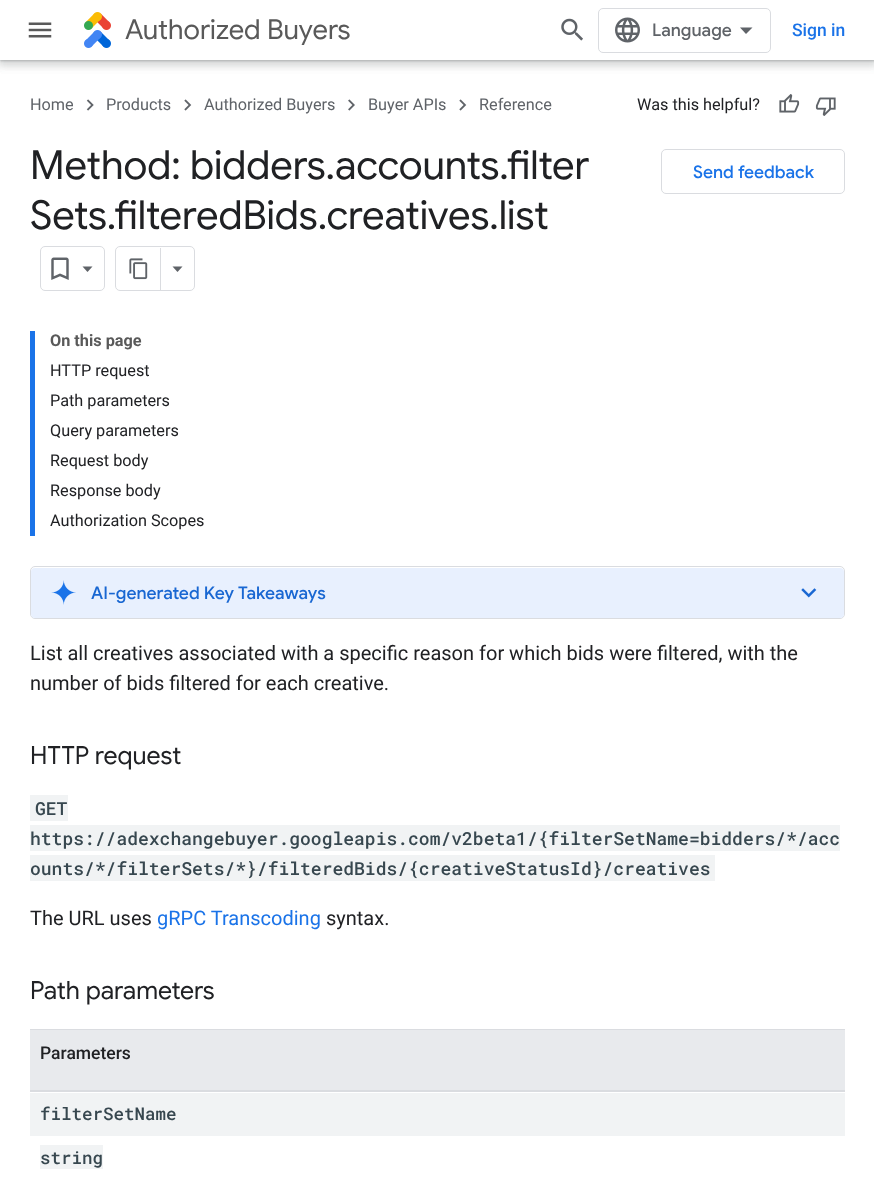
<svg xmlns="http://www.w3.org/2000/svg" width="874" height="1184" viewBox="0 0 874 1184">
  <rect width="100%" height="100%" fill="#fff"/>
  <path d="M-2 0h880v65H-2z" fill="#3c404326" filter="blur(4px)"/>
  <path d="M0 1h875v60H0z" fill="#3c40434d" filter="blur(1px)"/>
  <path d="M-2 60h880v5H-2z" fill="#3c404326" filter="blur(4px)"/>
  <path d="M0 0h874v60H0z" fill="#fff"/>
  <image x="28" y="22" width="24" height="16" href="img/1.png"/>
  <image x="84" y="12" width="27" height="36" href="img/2.png"/>
  <image x="561" y="18" width="22" height="23" href="img/3.png"/>
  <rect x="598.5" y="8.5" width="172" height="44" rx="4.5" fill="none" stroke="#dadce0"/>
  <image x="615" y="17" width="25" height="26" href="img/4.png"/>
  <path d="M746 34L740 27.5H752.5Z" fill="#5f6368"/>
  <image x="86" y="99" width="8" height="12" href="img/5.png"/>
  <image x="184" y="99" width="8" height="12" href="img/6.png"/>
  <image x="348" y="99" width="7" height="12" href="img/7.png"/>
  <image x="459" y="99" width="8" height="12" href="img/6.png"/>
  <image x="779" y="94" width="21" height="19" href="img/8.png"/>
  <image x="815" y="97" width="21" height="19" href="img/9.png"/>
  <rect x="40.5" y="246.5" width="64" height="44" rx="4.5" fill="none" stroke="#dadce0"/>
  <image x="51" y="257" width="18" height="23" href="img/10.png"/>
  <path d="M82.5 266.5H92.5L87.5 272Z" fill="#5f6368"/>
  <rect x="115.5" y="246.5" width="79" height="44" rx="4.5" fill="none" stroke="#dadce0"/>
  <path d="M160 248h1v42H160z" fill="#dadce0"/>
  <image x="129" y="258" width="19" height="22" href="img/11.png"/>
  <path d="M172.5 266.5H182.5L177.5 272Z" fill="#5f6368"/>
  <rect x="661.5" y="149.5" width="183" height="44" rx="4.5" fill="none" stroke="#dadce0"/>
  <path d="M30 331h5v205H30z" fill="#1a73e8"/>
  <rect x="30.5" y="566.5" width="814" height="52" rx="4.5" fill="none" stroke="#dadce0"/>
  <rect x="31" y="568" width="813" height="50" rx="4" fill="#e8f0fe"/>
  <image x="51" y="580" width="25" height="25" href="img/12.png"/>
  <image x="801" y="588" width="16" height="10" href="img/13.png"/>
  <path d="M30 795h38v26H30z" fill="#f1f3f4"/>
  <path d="M30 825h810v26H30z" fill="#f1f3f4"/>
  <path d="M30 855h685v26H30z" fill="#f1f3f4"/>
  <path d="M30 1029h815v1H30z" fill="#dadce0"/>
  <path d="M30 1090h815v2H30z" fill="#dadce0"/>
  <path d="M30 1030h815v60H30z" fill="#e8eaed"/>
  <path d="M30 1093h815v43H30z" fill="#f1f3f4"/>
  <path d="M40 1145h63v24H40z" fill="#f1f3f4"/>
  <text x="125" y="39" font-family="Google Sans" font-size="27.5" fill="#595959">Authorized Buyers</text>
  <text x="652" y="36" font-family="Google Sans" font-size="17.5" font-weight="500" fill="#5f6368">Language</text>
  <text x="792" y="36" font-family="Roboto" font-size="17.5" font-weight="500" fill="#1a73e8">Sign in</text>
  <g font-family="Roboto" font-size="16.25" fill="#5f6368">
    <text x="30" y="110">Home</text>
    <text x="106" y="110">Products</text>
    <text x="204" y="110">Authorized Buyers</text>
    <text x="368" y="110">Buyer APIs</text>
    <text x="479" y="110">Reference</text>
  </g>
  <text x="637" y="110" font-family="Roboto" font-size="16.25" fill="#202124">Was this helpful?</text>
  <g font-family="Google Sans" font-size="40" fill="#202124">
    <text x="30" y="179">Method: bidders.accounts.filter</text>
    <text x="30" y="229">Sets.filteredBids.creatives.list</text>
  </g>
  <text x="693" y="178" font-family="Google Sans" font-size="17.5" font-weight="500" fill="#1a73e8">Send feedback</text>
  <text x="50" y="346" font-family="Roboto" font-size="16.25" font-weight="bold" fill="#595959">On this page</text>
  <g font-family="Roboto" font-size="16.25" fill="#202124">
    <text x="50" y="376">HTTP request</text>
    <text x="50" y="406">Path parameters</text>
    <text x="50" y="436">Query parameters</text>
    <text x="50" y="466">Request body</text>
    <text x="50" y="496">Response body</text>
    <text x="50" y="526">Authorization Scopes</text>
  </g>
  <text x="91" y="599" font-family="Google Sans" font-size="17.5" font-weight="500" fill="#1967d2">AI-generated Key Takeaways</text>
  <g font-family="Roboto" font-size="20" fill="#202124">
    <text x="30" y="660">List all creatives associated with a specific reason for which bids were filtered, with the</text>
    <text x="30" y="690">number of bids filtered for each creative.</text>
  </g>
  <text x="30" y="764" font-family="Google Sans" font-size="25" fill="#202124">HTTP request</text>
  <g font-family="Roboto Mono" font-size="18" font-weight="500" fill="#37474f">
    <text x="35" y="815">GET</text>
    <text x="30" y="845">https://adexchangebuyer.googleapis.com/v2beta1/{filterSetName=bidders/*/acc</text>
    <text x="30" y="875">ounts/*/filterSets/*}/filteredBids/{creativeStatusId}/creatives</text>
  </g>
  <text x="30" y="925" font-family="Roboto" font-size="20" fill="#202124">The URL uses</text>
  <text x="157" y="925" font-family="Roboto" font-size="20" fill="#1a73e8">gRPC Transcoding</text>
  <text x="326" y="925" font-family="Roboto" font-size="20" fill="#202124">syntax.</text>
  <text x="30" y="999" font-family="Google Sans" font-size="25" fill="#202124">Path parameters</text>
  <text x="40" y="1059" font-family="Roboto" font-size="17.5" font-weight="500" fill="#202124">Parameters</text>
  <g font-family="Roboto Mono" font-size="17.5" font-weight="500" fill="#37474f">
    <text x="40" y="1120">filterSetName</text>
    <text x="40" y="1164">string</text>
  </g>
</svg>
